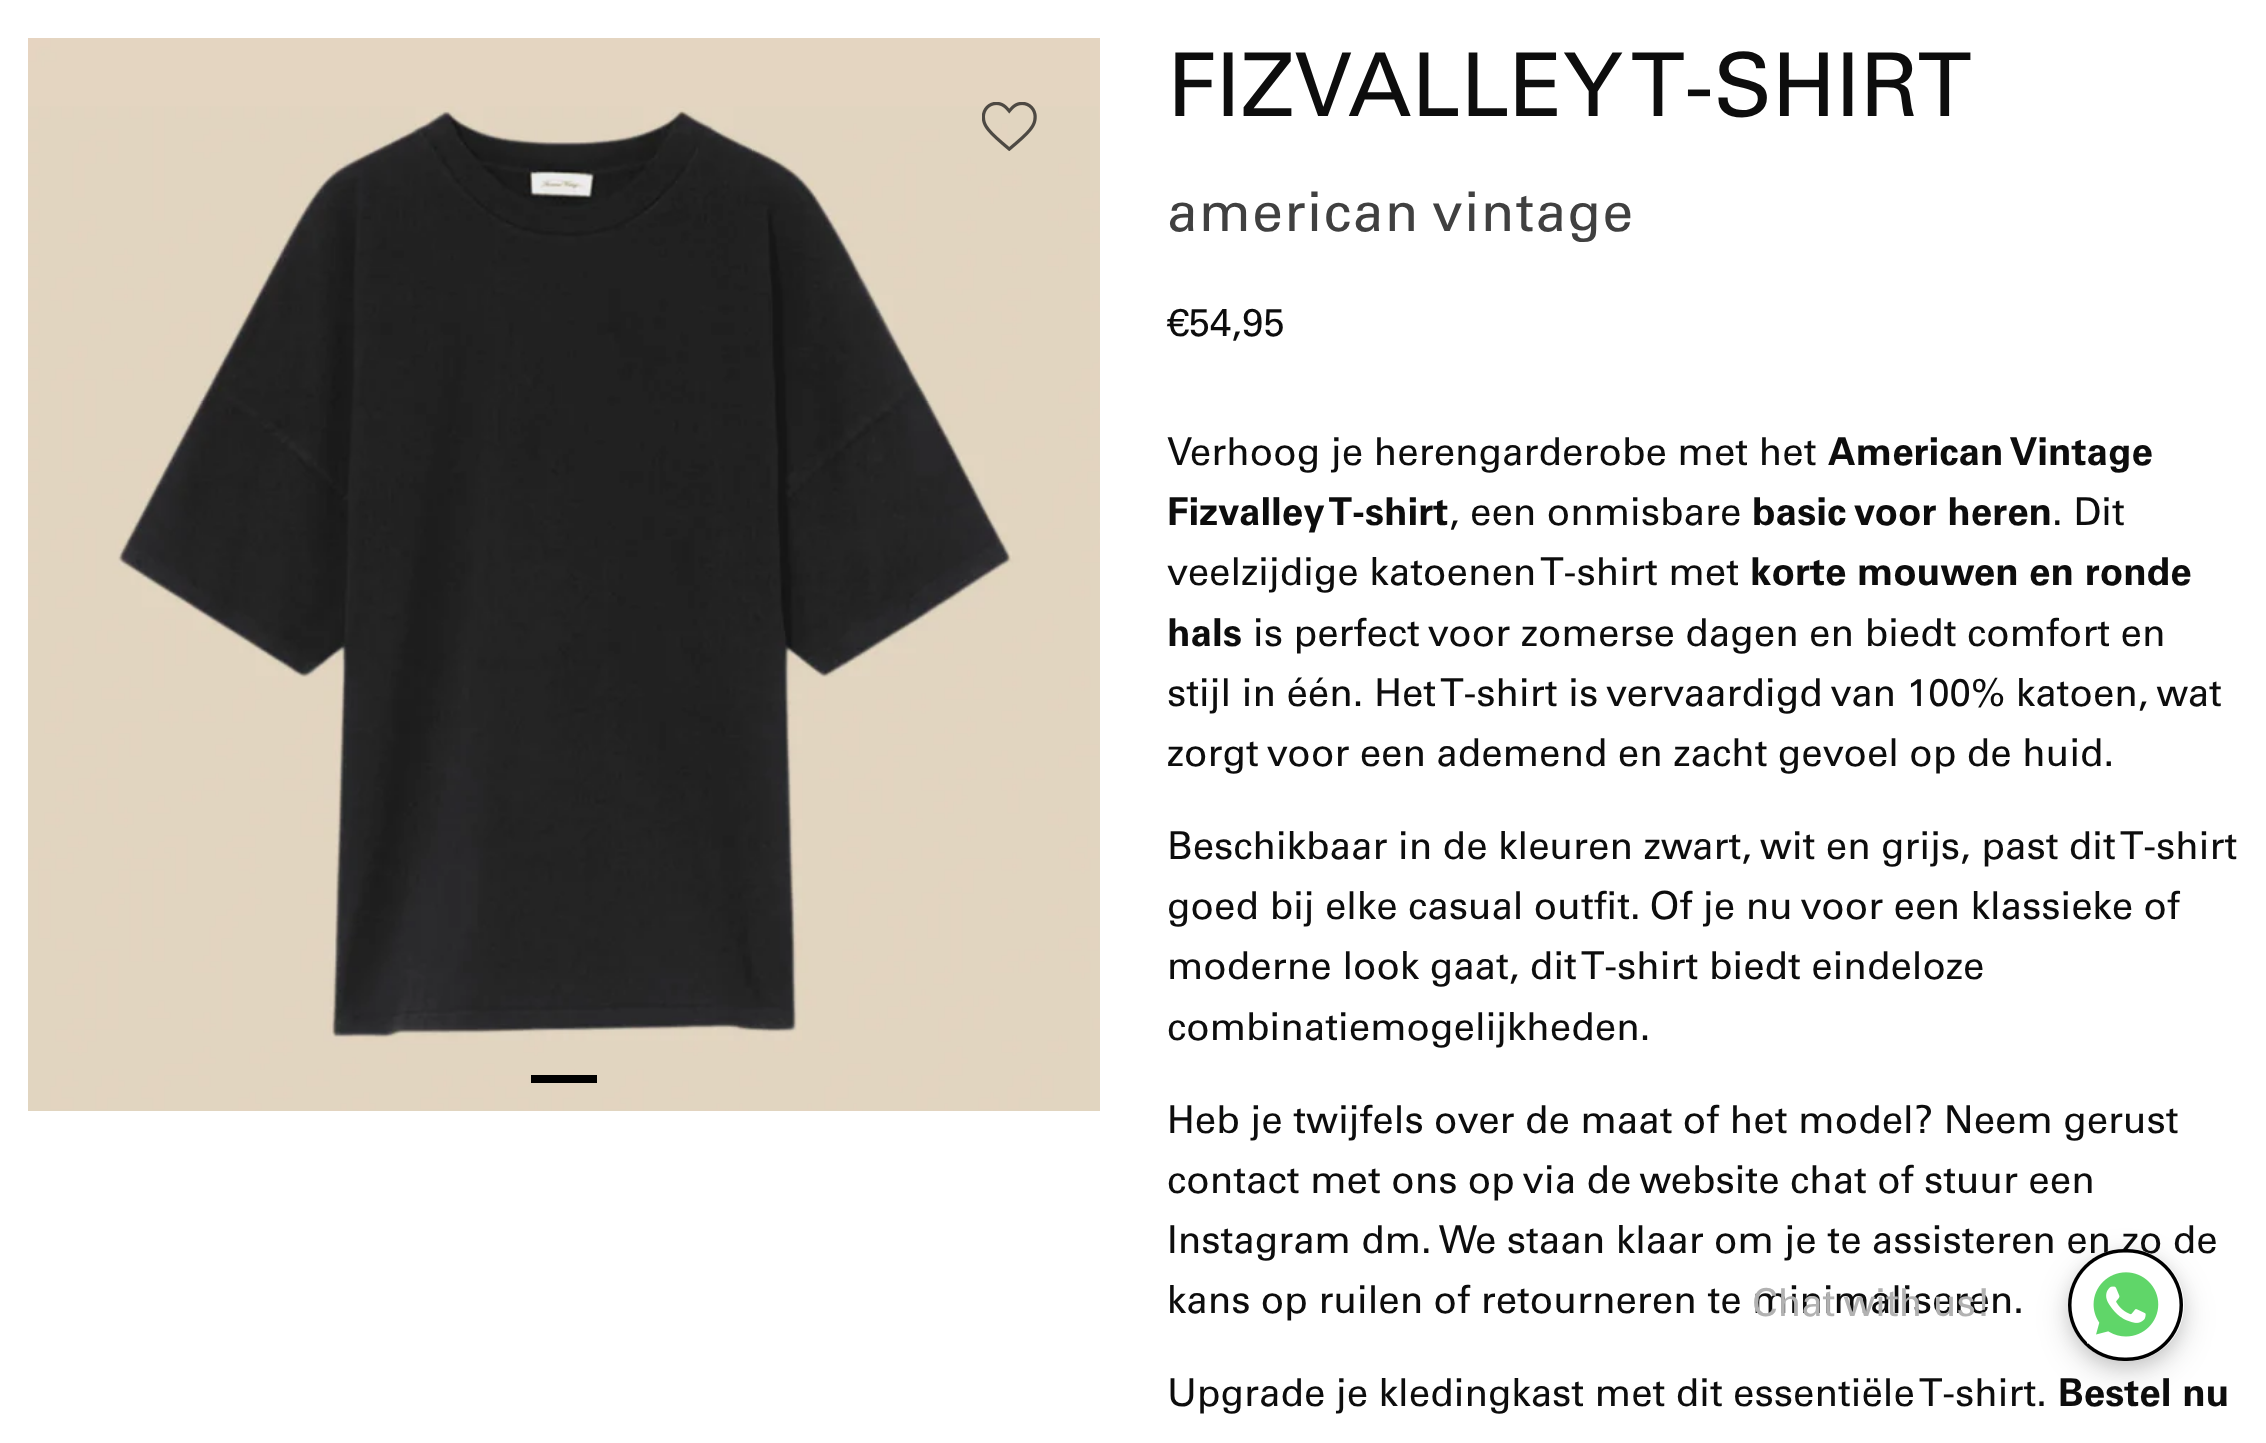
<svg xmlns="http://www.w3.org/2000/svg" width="2266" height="1443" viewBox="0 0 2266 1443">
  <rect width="100%" height="100%" fill="#fff"/>
  <image x="28" y="38" width="1072" height="1073" href="img/1.png"/>
  <image x="982" y="102" width="55" height="49" href="img/2.png"/>
  <path d="M531 1075h66v8H531z" fill="#000"/>
  <rect x="2068" y="1254" width="116" height="113" rx="56.5" fill="#0000001a" filter="blur(8px)"/>
  <rect x="2068" y="1260" width="116" height="112" rx="56" fill="#00000026" filter="blur(16.5px)"/>
  <text x="1167" y="116" font-family="Univers" font-size="88" fill="#0d0d0d">FIZVALLEY T-SHIRT</text>
  <text x="1167" y="231" font-family="Univers" font-size="55" letter-spacing="1.4" fill="#404040">american vintage</text>
  <g font-family="Univers" font-size="38.5" fill="#0d0d0d">
    <text x="1167" y="336">€54,95</text>
    <text x="1167" y="465">Verhoog je herengarderobe met het</text>
  </g>
  <g font-family="Univers" font-size="38.5" font-weight="bold" fill="#0d0d0d">
    <text x="1828" y="465">American Vintage</text>
    <text x="1167" y="525">Fizvalley T-shirt</text>
  </g>
  <text x="1449" y="525" font-family="Univers" font-size="38.5" fill="#0d0d0d">, een onmisbare</text>
  <text x="1752" y="525" font-family="Univers" font-size="38.5" font-weight="bold" fill="#0d0d0d">basic voor heren</text>
  <g font-family="Univers" font-size="38.5" fill="#0d0d0d">
    <text x="2052" y="525">. Dit</text>
    <text x="1167" y="585">veelzijdige katoenen T-shirt met</text>
  </g>
  <g font-family="Univers" font-size="38.5" font-weight="bold" fill="#0d0d0d">
    <text x="1750" y="585">korte mouwen en ronde</text>
    <text x="1167" y="646">hals</text>
  </g>
  <g font-family="Univers" font-size="38.5" fill="#0d0d0d">
    <text x="1253" y="646">is perfect voor zomerse dagen en biedt comfort en</text>
    <text x="1167" y="706">stijl in één. Het T-shirt is vervaardigd van 100% katoen, wat</text>
    <text x="1167" y="766">zorgt voor een ademend en zacht gevoel op de huid.</text>
    <text x="1167" y="859">Beschikbaar in de kleuren zwart, wit en grijs, past dit T-shirt</text>
    <text x="1167" y="919">goed bij elke casual outfit. Of je nu voor een klassieke of</text>
    <text x="1167" y="979">moderne look gaat, dit T-shirt biedt eindeloze</text>
    <text x="1167" y="1040">combinatiemogelijkheden.</text>
    <text x="1167" y="1133">Heb je twijfels over de maat of het model? Neem gerust</text>
    <text x="1167" y="1193">contact met ons op via de website chat of stuur een</text>
    <text x="1167" y="1253">Instagram dm. We staan klaar om je te assisteren en zo de</text>
    <text x="1167" y="1313">kans op ruilen of retourneren te minimaliseren.</text>
    <text x="1167" y="1406">Upgrade je kledingkast met dit essentiële T-shirt.</text>
  </g>
  <text x="2058" y="1406" font-family="Univers" font-size="38.5" font-weight="bold" fill="#0d0d0d">Bestel nu</text>
  <rect x="2068" y="1249" width="116" height="112" rx="56" fill="#fff"/>
  <text x="1752" y="1316" font-family="Univers" font-size="38.5" fill="#b2b2b2">Chat with us!</text>
  <image x="2068" y="1249" width="115" height="112" href="img/3.png"/>
</svg>
